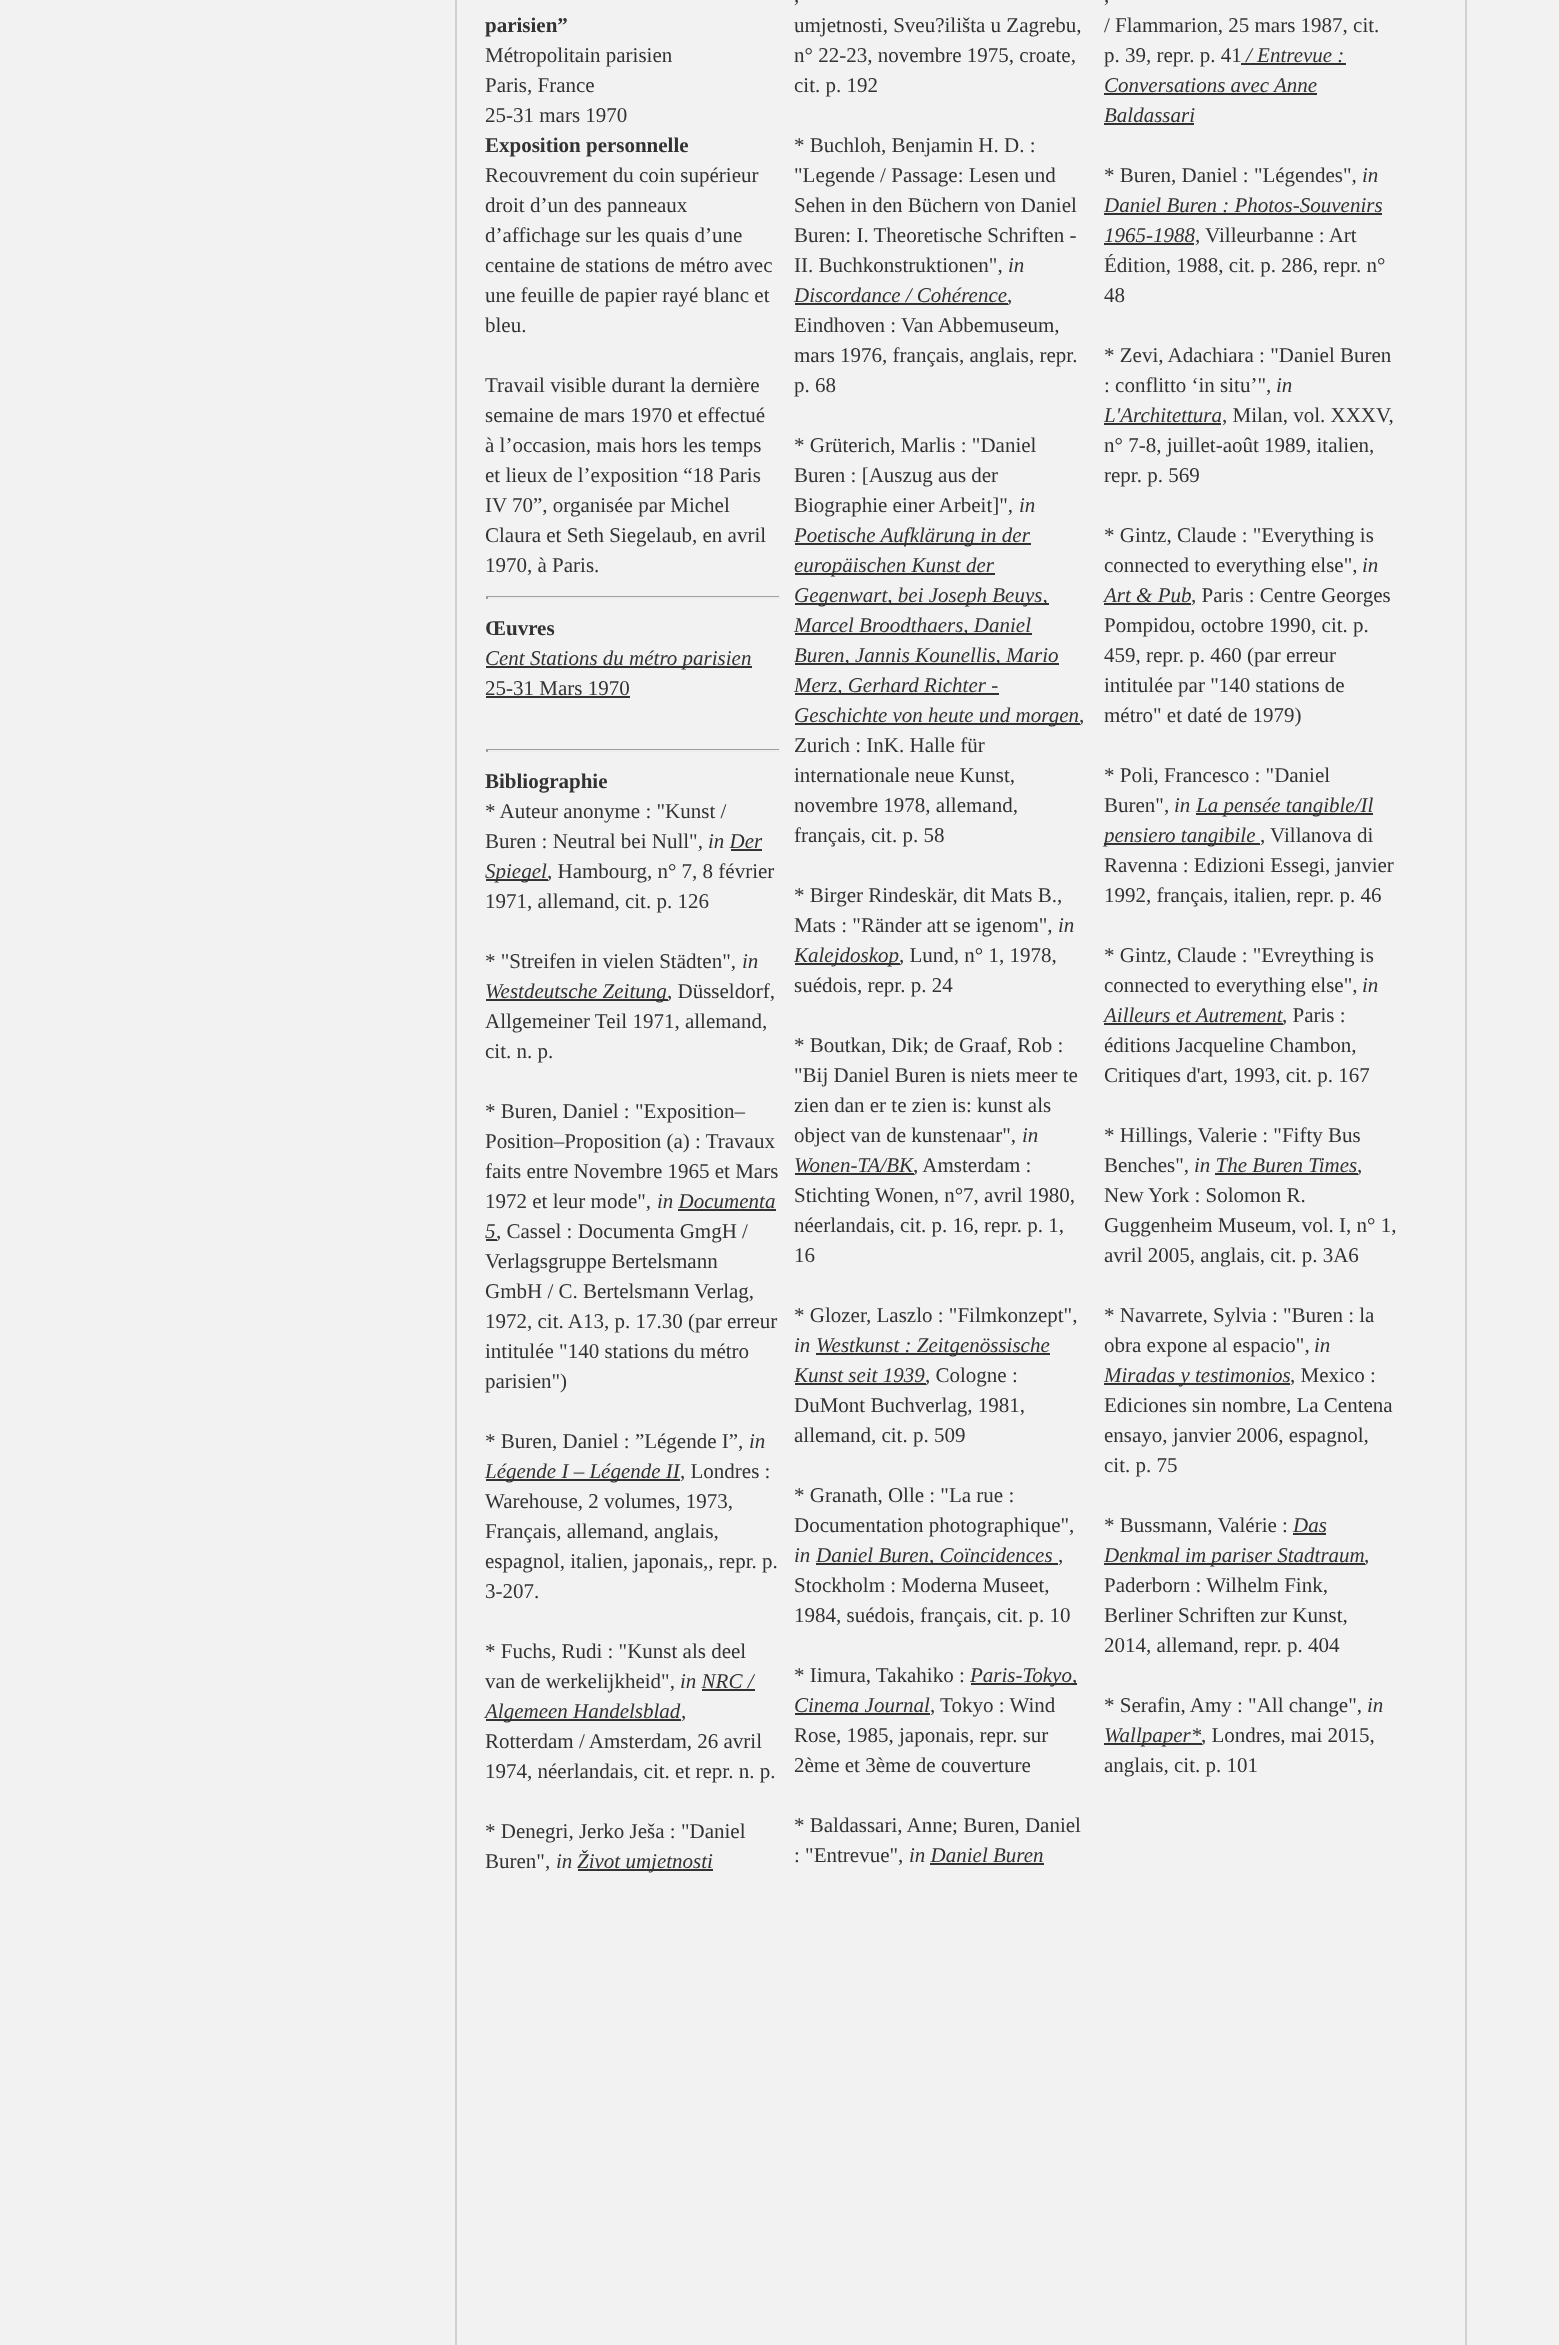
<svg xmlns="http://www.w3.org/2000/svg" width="1559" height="2345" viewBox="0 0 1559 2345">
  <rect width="100%" height="100%" fill="#f2f2f2"/>
  <path d="M456 -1h1010v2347H456z" fill="none" stroke="#d1d1d1" stroke-width="2"/>
  <path d="M486 596h294v1H486z" fill="#9f9f9f"/>
  <path d="M779 596h2v3H779z" fill="#eee"/>
  <path d="M486 597h294v2H486z" fill="#eee"/>
  <path d="M486 596h2v3H486z" fill="#9f9f9f"/>
  <path d="M486 666h266v2H486z" fill="#333"/>
  <path d="M486 696h144v2H486z" fill="#333"/>
  <path d="M486 749h294v1H486z" fill="#9f9f9f"/>
  <path d="M779 749h2v3H779z" fill="#eee"/>
  <path d="M486 750h294v2H486z" fill="#eee"/>
  <path d="M486 749h2v3H486z" fill="#9f9f9f"/>
  <path d="M731 849h31v2H731z" fill="#333"/>
  <path d="M486 879h62v2H486z" fill="#333"/>
  <path d="M486 999h182v2H486z" fill="#333"/>
  <path d="M678 1209h98v2H678z" fill="#333"/>
  <path d="M486 1239h11v2H486z" fill="#333"/>
  <path d="M486 1479h194v2H486z" fill="#333"/>
  <path d="M702 1689h53v2H702z" fill="#333"/>
  <path d="M486 1719h195v2H486z" fill="#333"/>
  <path d="M578 1869h135v2H578z" fill="#333"/>
  <path d="M795 303h213v2H795z" fill="#333"/>
  <path d="M795 543h236v2H795z" fill="#333"/>
  <path d="M795 573h200v2H795z" fill="#333"/>
  <path d="M795 603h254v2H795z" fill="#333"/>
  <path d="M795 633h237v2H795z" fill="#333"/>
  <path d="M795 663h264v2H795z" fill="#333"/>
  <path d="M795 693h204v2H795z" fill="#333"/>
  <path d="M795 723h285v2H795z" fill="#333"/>
  <path d="M795 963h105v2H795z" fill="#333"/>
  <path d="M795 1173h119v2H795z" fill="#333"/>
  <path d="M816 1353h234v2H816z" fill="#333"/>
  <path d="M795 1383h131v2H795z" fill="#333"/>
  <path d="M816 1563h242v2H816z" fill="#333"/>
  <path d="M971 1683h106v2H971z" fill="#333"/>
  <path d="M795 1713h135v2H795z" fill="#333"/>
  <path d="M930 1863h114v2H930z" fill="#333"/>
  <path d="M1241 63h105v2H1241z" fill="#333"/>
  <path d="M1104 93h213v2H1104z" fill="#333"/>
  <path d="M1104 123h90v2H1104z" fill="#333"/>
  <path d="M1104 213h278v2H1104z" fill="#333"/>
  <path d="M1104 243h90v2H1104z" fill="#333"/>
  <path d="M1104 423h117v2H1104z" fill="#333"/>
  <path d="M1104 603h87v2H1104z" fill="#333"/>
  <path d="M1196 813h177v2H1196z" fill="#333"/>
  <path d="M1104 843h156v2H1104z" fill="#333"/>
  <path d="M1104 1023h179v2H1104z" fill="#333"/>
  <path d="M1215 1173h143v2H1215z" fill="#333"/>
  <path d="M1104 1383h186v2H1104z" fill="#333"/>
  <path d="M1293 1533h33v2H1293z" fill="#333"/>
  <path d="M1104 1563h261v2H1104z" fill="#333"/>
  <path d="M1104 1743h98v2H1104z" fill="#333"/>
  <text x="485" y="32" font-family="Liberation Serif" font-size="21" font-weight="bold" fill="#333">parisien”</text>
  <g font-family="Liberation Serif" font-size="21" fill="#333">
    <text x="485" y="62">Métropolitain parisien</text>
    <text x="485" y="92">Paris, France</text>
    <text x="485" y="122">25-31 mars 1970</text>
  </g>
  <text x="485" y="152" font-family="Liberation Serif" font-size="21" font-weight="bold" fill="#333">Exposition personnelle</text>
  <g font-family="Liberation Serif" font-size="21" fill="#333">
    <text x="485" y="182">Recouvrement du coin supérieur</text>
    <text x="485" y="212">droit d’un des panneaux</text>
    <text x="485" y="242">d’affichage sur les quais d’une</text>
    <text x="485" y="272">centaine de stations de métro avec</text>
    <text x="485" y="302">une feuille de papier rayé blanc et</text>
    <text x="485" y="332">bleu.</text>
    <text x="485" y="392">Travail visible durant la dernière</text>
    <text x="485" y="422">semaine de mars 1970 et effectué</text>
    <text x="485" y="452">à l’occasion, mais hors les temps</text>
    <text x="485" y="482">et lieux de l’exposition “18 Paris</text>
    <text x="485" y="512">IV 70”, organisée par Michel</text>
    <text x="485" y="542">Claura et Seth Siegelaub, en avril</text>
    <text x="485" y="572">1970, à Paris.</text>
  </g>
  <text x="485" y="635" font-family="Liberation Serif" font-size="21" font-weight="bold" fill="#333">Œuvres</text>
  <text x="485" y="665" font-family="Liberation Serif" font-size="21" font-style="italic" fill="#333">Cent Stations du métro parisien</text>
  <text x="485" y="695" font-family="Liberation Serif" font-size="21" fill="#333">25-31 Mars 1970</text>
  <text x="485" y="788" font-family="Liberation Serif" font-size="21" font-weight="bold" fill="#333">Bibliographie</text>
  <g font-family="Liberation Serif" font-size="21" fill="#333">
    <text x="485" y="818">* Auteur anonyme : "Kunst /</text>
    <text x="485" y="848">Buren : Neutral bei Null",</text>
  </g>
  <g font-family="Liberation Serif" font-size="21" font-style="italic" fill="#333">
    <text x="708" y="848">in Der</text>
    <text x="485" y="878">Spiegel</text>
  </g>
  <g font-family="Liberation Serif" font-size="21" fill="#333">
    <text x="547" y="878">, Hambourg, n° 7, 8 février</text>
    <text x="485" y="908">1971, allemand, cit. p. 126</text>
    <text x="485" y="968">* "Streifen in vielen Städten",</text>
  </g>
  <g font-family="Liberation Serif" font-size="21" font-style="italic" fill="#333">
    <text x="742" y="968">in</text>
    <text x="485" y="998">Westdeutsche Zeitung</text>
  </g>
  <g font-family="Liberation Serif" font-size="21" fill="#333">
    <text x="667" y="998">, Düsseldorf,</text>
    <text x="485" y="1028">Allgemeiner Teil 1971, allemand,</text>
    <text x="485" y="1058">cit. n. p.</text>
    <text x="485" y="1118">* Buren, Daniel : "Exposition–</text>
    <text x="485" y="1148">Position–Proposition (a) : Travaux</text>
    <text x="485" y="1178">faits entre Novembre 1965 et Mars</text>
    <text x="485" y="1208">1972 et leur mode",</text>
  </g>
  <g font-family="Liberation Serif" font-size="21" font-style="italic" fill="#333">
    <text x="657" y="1208">in Documenta</text>
    <text x="485" y="1238">5</text>
  </g>
  <g font-family="Liberation Serif" font-size="21" fill="#333">
    <text x="496" y="1238">, Cassel : Documenta GmgH /</text>
    <text x="485" y="1268">Verlagsgruppe Bertelsmann</text>
    <text x="485" y="1298">GmbH / C. Bertelsmann Verlag,</text>
    <text x="485" y="1328">1972, cit. A13, p. 17.30 (par erreur</text>
    <text x="485" y="1358">intitulée "140 stations du métro</text>
    <text x="485" y="1388">parisien")</text>
    <text x="485" y="1448">* Buren, Daniel : ”Légende I”,</text>
  </g>
  <g font-family="Liberation Serif" font-size="21" font-style="italic" fill="#333">
    <text x="749" y="1448">in</text>
    <text x="485" y="1478">Légende I – Légende II</text>
  </g>
  <g font-family="Liberation Serif" font-size="21" fill="#333">
    <text x="680" y="1478">, Londres :</text>
    <text x="485" y="1508">Warehouse, 2 volumes, 1973,</text>
    <text x="485" y="1538">Français, allemand, anglais,</text>
    <text x="485" y="1568">espagnol, italien, japonais,, repr. p.</text>
    <text x="485" y="1598">3-207.</text>
    <text x="485" y="1658">* Fuchs, Rudi : "Kunst als deel</text>
    <text x="485" y="1688">van de werkelijkheid",</text>
  </g>
  <g font-family="Liberation Serif" font-size="21" font-style="italic" fill="#333">
    <text x="680" y="1688">in NRC /</text>
    <text x="485" y="1718">Algemeen Handelsblad</text>
  </g>
  <g font-family="Liberation Serif" font-size="21" fill="#333">
    <text x="681" y="1718">,</text>
    <text x="485" y="1748">Rotterdam / Amsterdam, 26 avril</text>
    <text x="485" y="1778">1974, néerlandais, cit. et repr. n. p.</text>
    <text x="485" y="1838">* Denegri, Jerko Ješa : "Daniel</text>
    <text x="485" y="1868">Buren",</text>
  </g>
  <g font-family="Liberation Serif" font-size="21" font-style="italic" fill="#333">
    <text x="556" y="1868">in</text>
    <text x="577" y="1868">Život umjetnosti</text>
  </g>
  <g font-family="Liberation Serif" font-size="21" fill="#333">
    <text x="794" y="2">,</text>
    <text x="794" y="32">umjetnosti, Sveu?ilišta u Zagrebu,</text>
    <text x="794" y="62">n° 22-23, novembre 1975, croate,</text>
    <text x="794" y="92">cit. p. 192</text>
    <text x="794" y="152">* Buchloh, Benjamin H. D. :</text>
    <text x="794" y="182">"Legende / Passage: Lesen und</text>
    <text x="794" y="212">Sehen in den Büchern von Daniel</text>
    <text x="794" y="242">Buren: I. Theoretische Schriften -</text>
    <text x="794" y="272">II. Buchkonstruktionen",</text>
  </g>
  <g font-family="Liberation Serif" font-size="21" font-style="italic" fill="#333">
    <text x="1008" y="272">in</text>
    <text x="794" y="302">Discordance / Cohérence</text>
  </g>
  <g font-family="Liberation Serif" font-size="21" fill="#333">
    <text x="1007" y="302">,</text>
    <text x="794" y="332">Eindhoven : Van Abbemuseum,</text>
    <text x="794" y="362">mars 1976, français, anglais, repr.</text>
    <text x="794" y="392">p. 68</text>
    <text x="794" y="452">* Grüterich, Marlis : "Daniel</text>
    <text x="794" y="482">Buren : [Auszug aus der</text>
    <text x="794" y="512">Biographie einer Arbeit]",</text>
  </g>
  <g font-family="Liberation Serif" font-size="21" font-style="italic" fill="#333">
    <text x="1019" y="512">in</text>
    <text x="794" y="542">Poetische Aufklärung in der</text>
    <text x="794" y="572">europäischen Kunst der</text>
    <text x="794" y="602">Gegenwart, bei Joseph Beuys,</text>
    <text x="794" y="632">Marcel Broodthaers, Daniel</text>
    <text x="794" y="662">Buren, Jannis Kounellis, Mario</text>
    <text x="794" y="692">Merz, Gerhard Richter -</text>
    <text x="794" y="722">Geschichte von heute und morgen</text>
  </g>
  <g font-family="Liberation Serif" font-size="21" fill="#333">
    <text x="1079" y="722">,</text>
    <text x="794" y="752">Zurich : InK. Halle für</text>
    <text x="794" y="782">internationale neue Kunst,</text>
    <text x="794" y="812">novembre 1978, allemand,</text>
    <text x="794" y="842">français, cit. p. 58</text>
    <text x="794" y="902">* Birger Rindeskär, dit Mats B.,</text>
    <text x="794" y="932">Mats : "Ränder att se igenom",</text>
  </g>
  <g font-family="Liberation Serif" font-size="21" font-style="italic" fill="#333">
    <text x="1058" y="932">in</text>
    <text x="794" y="962">Kalejdoskop</text>
  </g>
  <g font-family="Liberation Serif" font-size="21" fill="#333">
    <text x="899" y="962">, Lund, n° 1, 1978,</text>
    <text x="794" y="992">suédois, repr. p. 24</text>
    <text x="794" y="1052">* Boutkan, Dik; de Graaf, Rob :</text>
    <text x="794" y="1082">"Bij Daniel Buren is niets meer te</text>
    <text x="794" y="1112">zien dan er te zien is: kunst als</text>
    <text x="794" y="1142">object van de kunstenaar",</text>
  </g>
  <g font-family="Liberation Serif" font-size="21" font-style="italic" fill="#333">
    <text x="1022" y="1142">in</text>
    <text x="794" y="1172">Wonen-TA/BK</text>
  </g>
  <g font-family="Liberation Serif" font-size="21" fill="#333">
    <text x="913" y="1172">, Amsterdam :</text>
    <text x="794" y="1202">Stichting Wonen, n°7, avril 1980,</text>
    <text x="794" y="1232">néerlandais, cit. p. 16, repr. p. 1,</text>
    <text x="794" y="1262">16</text>
    <text x="794" y="1322">* Glozer, Laszlo : "Filmkonzept",</text>
  </g>
  <g font-family="Liberation Serif" font-size="21" font-style="italic" fill="#333">
    <text x="794" y="1352">in</text>
    <text x="816" y="1352">Westkunst : Zeitgenössische</text>
    <text x="794" y="1382">Kunst seit 1939</text>
  </g>
  <g font-family="Liberation Serif" font-size="21" fill="#333">
    <text x="925" y="1382">, Cologne :</text>
    <text x="794" y="1412">DuMont Buchverlag, 1981,</text>
    <text x="794" y="1442">allemand, cit. p. 509</text>
    <text x="794" y="1502">* Granath, Olle : "La rue :</text>
    <text x="794" y="1532">Documentation photographique",</text>
  </g>
  <g font-family="Liberation Serif" font-size="21" font-style="italic" fill="#333">
    <text x="794" y="1562">in</text>
    <text x="816" y="1562">Daniel Buren, Coïncidences</text>
  </g>
  <g font-family="Liberation Serif" font-size="21" fill="#333">
    <text x="1058" y="1562">,</text>
    <text x="794" y="1592">Stockholm : Moderna Museet,</text>
    <text x="794" y="1622">1984, suédois, français, cit. p. 10</text>
    <text x="794" y="1682">* Iimura, Takahiko :</text>
  </g>
  <g font-family="Liberation Serif" font-size="21" font-style="italic" fill="#333">
    <text x="970" y="1682">Paris-Tokyo,</text>
    <text x="794" y="1712">Cinema Journal</text>
  </g>
  <g font-family="Liberation Serif" font-size="21" fill="#333">
    <text x="930" y="1712">, Tokyo : Wind</text>
    <text x="794" y="1742">Rose, 1985, japonais, repr. sur</text>
    <text x="794" y="1772">2ème et 3ème de couverture</text>
    <text x="794" y="1832">* Baldassari, Anne; Buren, Daniel</text>
    <text x="794" y="1862">: "Entrevue",</text>
  </g>
  <text x="909" y="1862" font-family="Liberation Serif" font-size="21" font-style="italic" fill="#333">in Daniel Buren</text>
  <g font-family="Liberation Serif" font-size="21" fill="#333">
    <text x="1104" y="2">,</text>
    <text x="1104" y="32">/ Flammarion, 25 mars 1987, cit.</text>
    <text x="1104" y="62">p. 39, repr. p. 41</text>
  </g>
  <g font-family="Liberation Serif" font-size="21" font-style="italic" fill="#333">
    <text x="1246" y="62">/ Entrevue :</text>
    <text x="1104" y="92">Conversations avec Anne</text>
    <text x="1104" y="122">Baldassari</text>
  </g>
  <text x="1104" y="182" font-family="Liberation Serif" font-size="21" fill="#333">* Buren, Daniel : "Légendes",</text>
  <g font-family="Liberation Serif" font-size="21" font-style="italic" fill="#333">
    <text x="1362" y="182">in</text>
    <text x="1104" y="212">Daniel Buren : Photos-Souvenirs</text>
    <text x="1104" y="242">1965-1988</text>
  </g>
  <g font-family="Liberation Serif" font-size="21" fill="#333">
    <text x="1195" y="242">, Villeurbanne : Art</text>
    <text x="1104" y="272">Édition, 1988, cit. p. 286, repr. n°</text>
    <text x="1104" y="302">48</text>
    <text x="1104" y="362">* Zevi, Adachiara : "Daniel Buren</text>
    <text x="1104" y="392">: conflitto ‘in situ’",</text>
  </g>
  <g font-family="Liberation Serif" font-size="21" font-style="italic" fill="#333">
    <text x="1276" y="392">in</text>
    <text x="1104" y="422">L'Architettura</text>
  </g>
  <g font-family="Liberation Serif" font-size="21" fill="#333">
    <text x="1222" y="422">, Milan, vol. XXXV,</text>
    <text x="1104" y="452">n° 7-8, juillet-août 1989, italien,</text>
    <text x="1104" y="482">repr. p. 569</text>
    <text x="1104" y="542">* Gintz, Claude : "Everything is</text>
    <text x="1104" y="572">connected to everything else",</text>
  </g>
  <g font-family="Liberation Serif" font-size="21" font-style="italic" fill="#333">
    <text x="1362" y="572">in</text>
    <text x="1104" y="602">Art &amp; Pub</text>
  </g>
  <g font-family="Liberation Serif" font-size="21" fill="#333">
    <text x="1191" y="602">, Paris : Centre Georges</text>
    <text x="1104" y="632">Pompidou, octobre 1990, cit. p.</text>
    <text x="1104" y="662">459, repr. p. 460 (par erreur</text>
    <text x="1104" y="692">intitulée par "140 stations de</text>
    <text x="1104" y="722">métro" et daté de 1979)</text>
    <text x="1104" y="782">* Poli, Francesco : "Daniel</text>
    <text x="1104" y="812">Buren",</text>
  </g>
  <g font-family="Liberation Serif" font-size="21" font-style="italic" fill="#333">
    <text x="1174" y="812">in</text>
    <text x="1196" y="812">La pensée tangible/Il</text>
    <text x="1104" y="842">pensiero tangibile</text>
  </g>
  <g font-family="Liberation Serif" font-size="21" fill="#333">
    <text x="1260" y="842">, Villanova di</text>
    <text x="1104" y="872">Ravenna : Edizioni Essegi, janvier</text>
    <text x="1104" y="902">1992, français, italien, repr. p. 46</text>
    <text x="1104" y="962">* Gintz, Claude : "Evreything is</text>
    <text x="1104" y="992">connected to everything else",</text>
  </g>
  <g font-family="Liberation Serif" font-size="21" font-style="italic" fill="#333">
    <text x="1362" y="992">in</text>
    <text x="1104" y="1022">Ailleurs et Autrement</text>
  </g>
  <g font-family="Liberation Serif" font-size="21" fill="#333">
    <text x="1282" y="1022">, Paris :</text>
    <text x="1104" y="1052">éditions Jacqueline Chambon,</text>
    <text x="1104" y="1082">Critiques d'art, 1993, cit. p. 167</text>
    <text x="1104" y="1142">* Hillings, Valerie : "Fifty Bus</text>
    <text x="1104" y="1172">Benches",</text>
  </g>
  <text x="1194" y="1172" font-family="Liberation Serif" font-size="21" font-style="italic" fill="#333">in The Buren Times</text>
  <g font-family="Liberation Serif" font-size="21" fill="#333">
    <text x="1357" y="1172">,</text>
    <text x="1104" y="1202">New York : Solomon R.</text>
    <text x="1104" y="1232">Guggenheim Museum, vol. I, n° 1,</text>
    <text x="1104" y="1262">avril 2005, anglais, cit. p. 3A6</text>
    <text x="1104" y="1322">* Navarrete, Sylvia : "Buren : la</text>
    <text x="1104" y="1352">obra expone al espacio",</text>
  </g>
  <g font-family="Liberation Serif" font-size="21" font-style="italic" fill="#333">
    <text x="1314" y="1352">in</text>
    <text x="1104" y="1382">Miradas y testimonios</text>
  </g>
  <g font-family="Liberation Serif" font-size="21" fill="#333">
    <text x="1290" y="1382">, Mexico :</text>
    <text x="1104" y="1412">Ediciones sin nombre, La Centena</text>
    <text x="1104" y="1442">ensayo, janvier 2006, espagnol,</text>
    <text x="1104" y="1472">cit. p. 75</text>
    <text x="1104" y="1532">* Bussmann, Valérie :</text>
  </g>
  <g font-family="Liberation Serif" font-size="21" font-style="italic" fill="#333">
    <text x="1293" y="1532">Das</text>
    <text x="1104" y="1562">Denkmal im pariser Stadtraum</text>
  </g>
  <g font-family="Liberation Serif" font-size="21" fill="#333">
    <text x="1364" y="1562">,</text>
    <text x="1104" y="1592">Paderborn : Wilhelm Fink,</text>
    <text x="1104" y="1622">Berliner Schriften zur Kunst,</text>
    <text x="1104" y="1652">2014, allemand, repr. p. 404</text>
    <text x="1104" y="1712">* Serafin, Amy : "All change",</text>
  </g>
  <g font-family="Liberation Serif" font-size="21" font-style="italic" fill="#333">
    <text x="1367" y="1712">in</text>
    <text x="1104" y="1742">Wallpaper*</text>
  </g>
  <g font-family="Liberation Serif" font-size="21" fill="#333">
    <text x="1201" y="1742">, Londres, mai 2015,</text>
    <text x="1104" y="1772">anglais, cit. p. 101</text>
  </g>
</svg>
